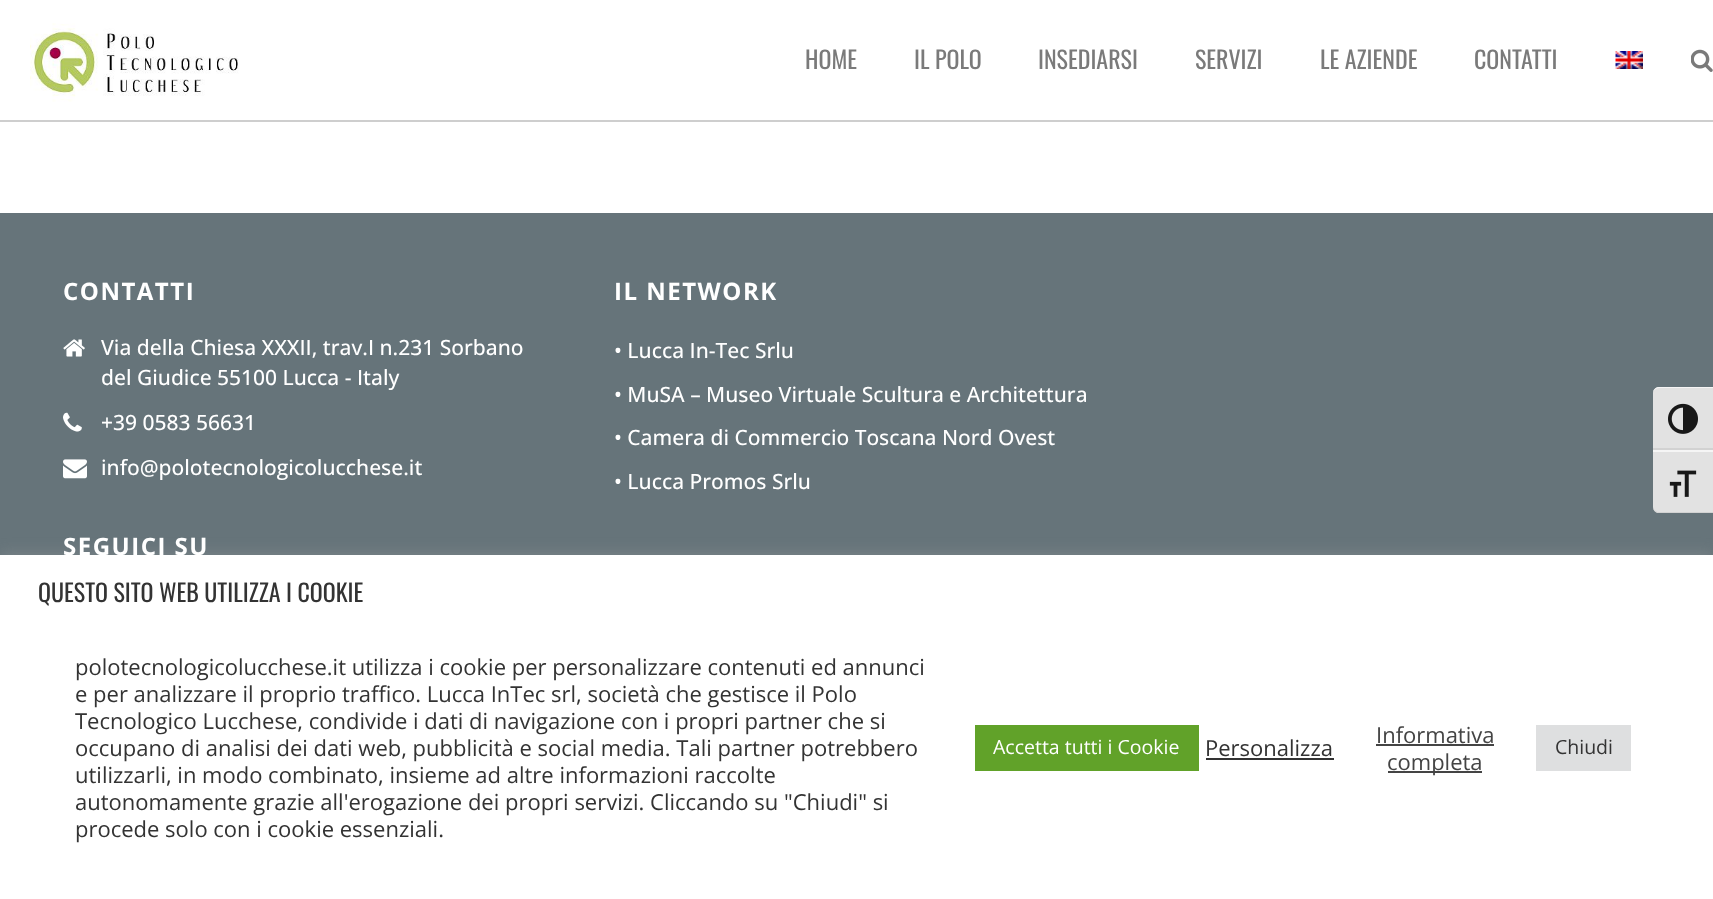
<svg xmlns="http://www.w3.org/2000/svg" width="1713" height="899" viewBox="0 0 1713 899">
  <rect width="100%" height="100%" fill="#66747a"/>
  <path d="M0 120h1713v2H0z" fill="#cecece"/>
  <path d="M0 0h1713v120H0z" fill="#fff"/>
  <image x="30" y="23" width="209" height="79" href="img/1.png"/>
  <image x="1615" y="51" width="28" height="18" href="img/2.png"/>
  <image x="1691" y="49" width="22" height="23" href="img/3.png"/>
  <path d="M0 122h1713v91H0z" fill="#fff"/>
  <image x="63" y="339" width="22" height="18" href="img/4.png"/>
  <image x="63" y="412" width="19" height="20" href="img/5.png"/>
  <image x="63" y="459" width="24" height="20" href="img/6.png"/>
  <path d="M1659 387H1713V450H1653V393C1653 389.5 1655.5 387 1659 387Z" fill="#e2e2e2"/>
  <path d="M1659 388H1713V387H1659C1656 387 1653 390 1653 393C1653 391 1656 388 1659 388Z" fill="#f5f5f5"/>
  <path d="M1653 448h60v2H1653z" fill="#d2d2d2"/>
  <image x="1668" y="403" width="30" height="31" href="img/7.png"/>
  <path d="M1653 450H1713V513H1659C1655.5 513 1653 510.5 1653 507Z" fill="#e2e2e2"/>
  <path d="M1653 450h60v2H1653z" fill="#f5f5f5"/>
  <path d="M1713 513V512H1659C1656 512 1653 509 1653 507C1653 510 1656 513 1659 513Z" fill="#d2d2d2"/>
  <image x="1669" y="470" width="28" height="27" href="img/8.png"/>
  <path d="M0 554h1713v345H0z" fill="#acabab4d" filter="blur(7.5px)"/>
  <path d="M0 555h1713v344H0z" fill="#fff"/>
  <path d="M975 725h224v46H975z" fill="#61a229"/>
  <path d="M1206 758h128v2H1206z" fill="#333"/>
  <path d="M1376 744h118v2H1376z" fill="#444"/>
  <path d="M1388 771h94v2H1388z" fill="#444"/>
  <path d="M1536 725h95v46H1536z" fill="#dedfe0"/>
  <g font-family="Oswald" font-size="24" fill="#7a7a7a">
    <text x="805" y="69">HOME</text>
    <text x="914" y="69">IL POLO</text>
    <text x="1038" y="69">INSEDIARSI</text>
    <text x="1195" y="69">SERVIZI</text>
    <text x="1320" y="69">LE AZIENDE</text>
    <text x="1474" y="69">CONTATTI</text>
  </g>
  <text x="63" y="300" font-family="Open Sans" font-size="24" font-weight="bold" letter-spacing="1.5" fill="#fff">CONTATTI</text>
  <g font-family="Open Sans" font-size="21" font-weight="500" fill="#fff">
    <text x="101" y="355">Via della Chiesa XXXII, trav.I n.231 Sorbano</text>
    <text x="101" y="385">del Giudice 55100 Lucca - Italy</text>
    <text x="101" y="430">+39 0583 56631</text>
    <text x="101" y="475">info@polotecnologicolucchese.it</text>
  </g>
  <g font-family="Open Sans" font-size="24" font-weight="bold" letter-spacing="1.5" fill="#fff">
    <text x="63" y="555">SEGUICI SU</text>
    <text x="614" y="300">IL NETWORK</text>
  </g>
  <g font-family="Open Sans" font-size="21" font-weight="500" fill="#fff">
    <text x="614" y="358">• Lucca In-Tec Srlu</text>
    <text x="614" y="402">• MuSA – Museo Virtuale Scultura e Architettura</text>
    <text x="614" y="445">• Camera di Commercio Toscana Nord Ovest</text>
    <text x="614" y="489">• Lucca Promos Srlu</text>
  </g>
  <text x="38" y="602" font-family="Oswald" font-size="24" fill="#333">QUESTO SITO WEB UTILIZZA I COOKIE</text>
  <g font-family="Open Sans" font-size="22" fill="#333">
    <text x="75" y="675">polotecnologicolucchese.it utilizza i cookie per personalizzare contenuti ed annunci</text>
    <text x="75" y="702">e per analizzare il proprio traffico. Lucca InTec srl, società che gestisce il Polo</text>
    <text x="75" y="729">Tecnologico Lucchese, condivide i dati di navigazione con i propri partner che si</text>
    <text x="75" y="756">occupano di analisi dei dati web, pubblicità e social media. Tali partner potrebbero</text>
    <text x="75" y="783">utilizzarli, in modo combinato, insieme ad altre informazioni raccolte</text>
    <text x="75" y="810">autonomamente grazie all'erogazione dei propri servizi. Cliccando su "Chiudi" si</text>
    <text x="75" y="837">procede solo con i cookie essenziali.</text>
  </g>
  <text x="993" y="754" font-family="Open Sans" font-size="19.5" fill="#fff">Accetta tutti i Cookie</text>
  <text x="1205" y="756" font-family="Open Sans" font-size="22" fill="#333">Personalizza</text>
  <g font-family="Open Sans" font-size="22" fill="#444">
    <text x="1376" y="743">Informativa</text>
    <text x="1387" y="770">completa</text>
  </g>
  <text x="1555" y="754" font-family="Open Sans" font-size="19.5" fill="#333">Chiudi</text>
</svg>
